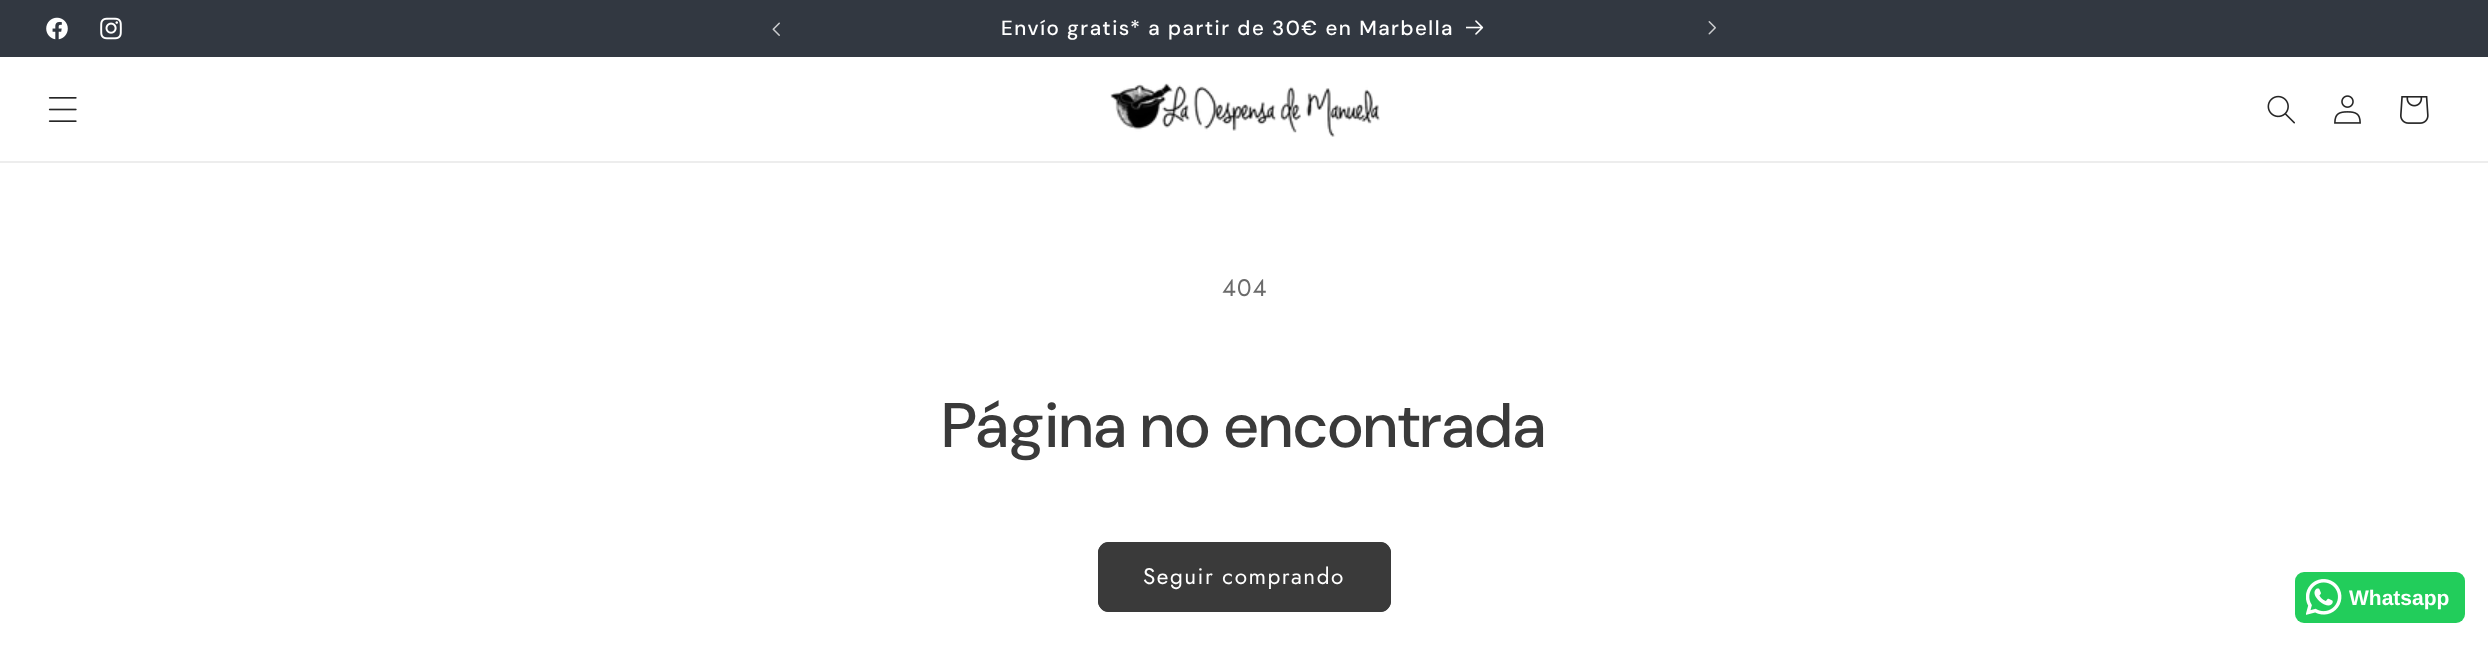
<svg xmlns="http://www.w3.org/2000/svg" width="2488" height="654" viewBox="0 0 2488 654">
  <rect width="100%" height="100%" fill="#fff"/>
  <path d="M0 0h2488v57H0z" fill="#323841"/>
  <image x="46" y="17" width="22" height="23" href="img/1.png"/>
  <image x="100" y="17" width="22" height="23" href="img/2.png"/>
  <image x="772" y="22" width="8" height="14" href="img/3.png"/>
  <image x="1466" y="20" width="18" height="15" href="img/4.png"/>
  <image x="1708" y="21" width="8" height="14" href="img/5.png"/>
  <path d="M0 161h2488v2H0z" fill="#ededed"/>
  <image x="48" y="97" width="29" height="25" href="img/6.png"/>
  <image x="1110" y="83" width="270" height="54" href="img/7.png"/>
  <image x="2267" y="95" width="28" height="29" href="img/8.png"/>
  <image x="2334" y="95" width="27" height="29" href="img/9.png"/>
  <image x="2400" y="96" width="29" height="28" href="img/10.png"/>
  <rect x="1098" y="542" width="293" height="70" rx="11" fill="#3a3a3a"/>
  <rect x="1099" y="543" width="291" height="68" rx="10" fill="none" stroke="#3a3a3a" stroke-width="2"/>
  <rect x="2295" y="572" width="170" height="51" rx="9" fill="#22cd5b"/>
  <image x="2306" y="579" width="36" height="36" href="img/11.png"/>
  <text x="1001" y="35" font-family="'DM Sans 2'" font-size="20.5" font-weight="500" letter-spacing="1.5" fill="#fff">Envío gratis* a partir de 30€ en Marbella</text>
  <text x="1222" y="296" font-family="Jost" font-size="24" letter-spacing="1" fill="#6b6b6b">404</text>
  <text x="942" y="447" font-family="DM Sans" font-size="63" font-weight="500" letter-spacing="0.9" fill="#3a3a3a">Página no encontrada</text>
  <text x="1143" y="584" font-family="Jost" font-size="22.5" letter-spacing="1.5" fill="#fff">Seguir comprando</text>
  <text x="2349" y="605" font-family="Liberation Sans" font-size="21" font-weight="bold" fill="#fff">Whatsapp</text>
</svg>
